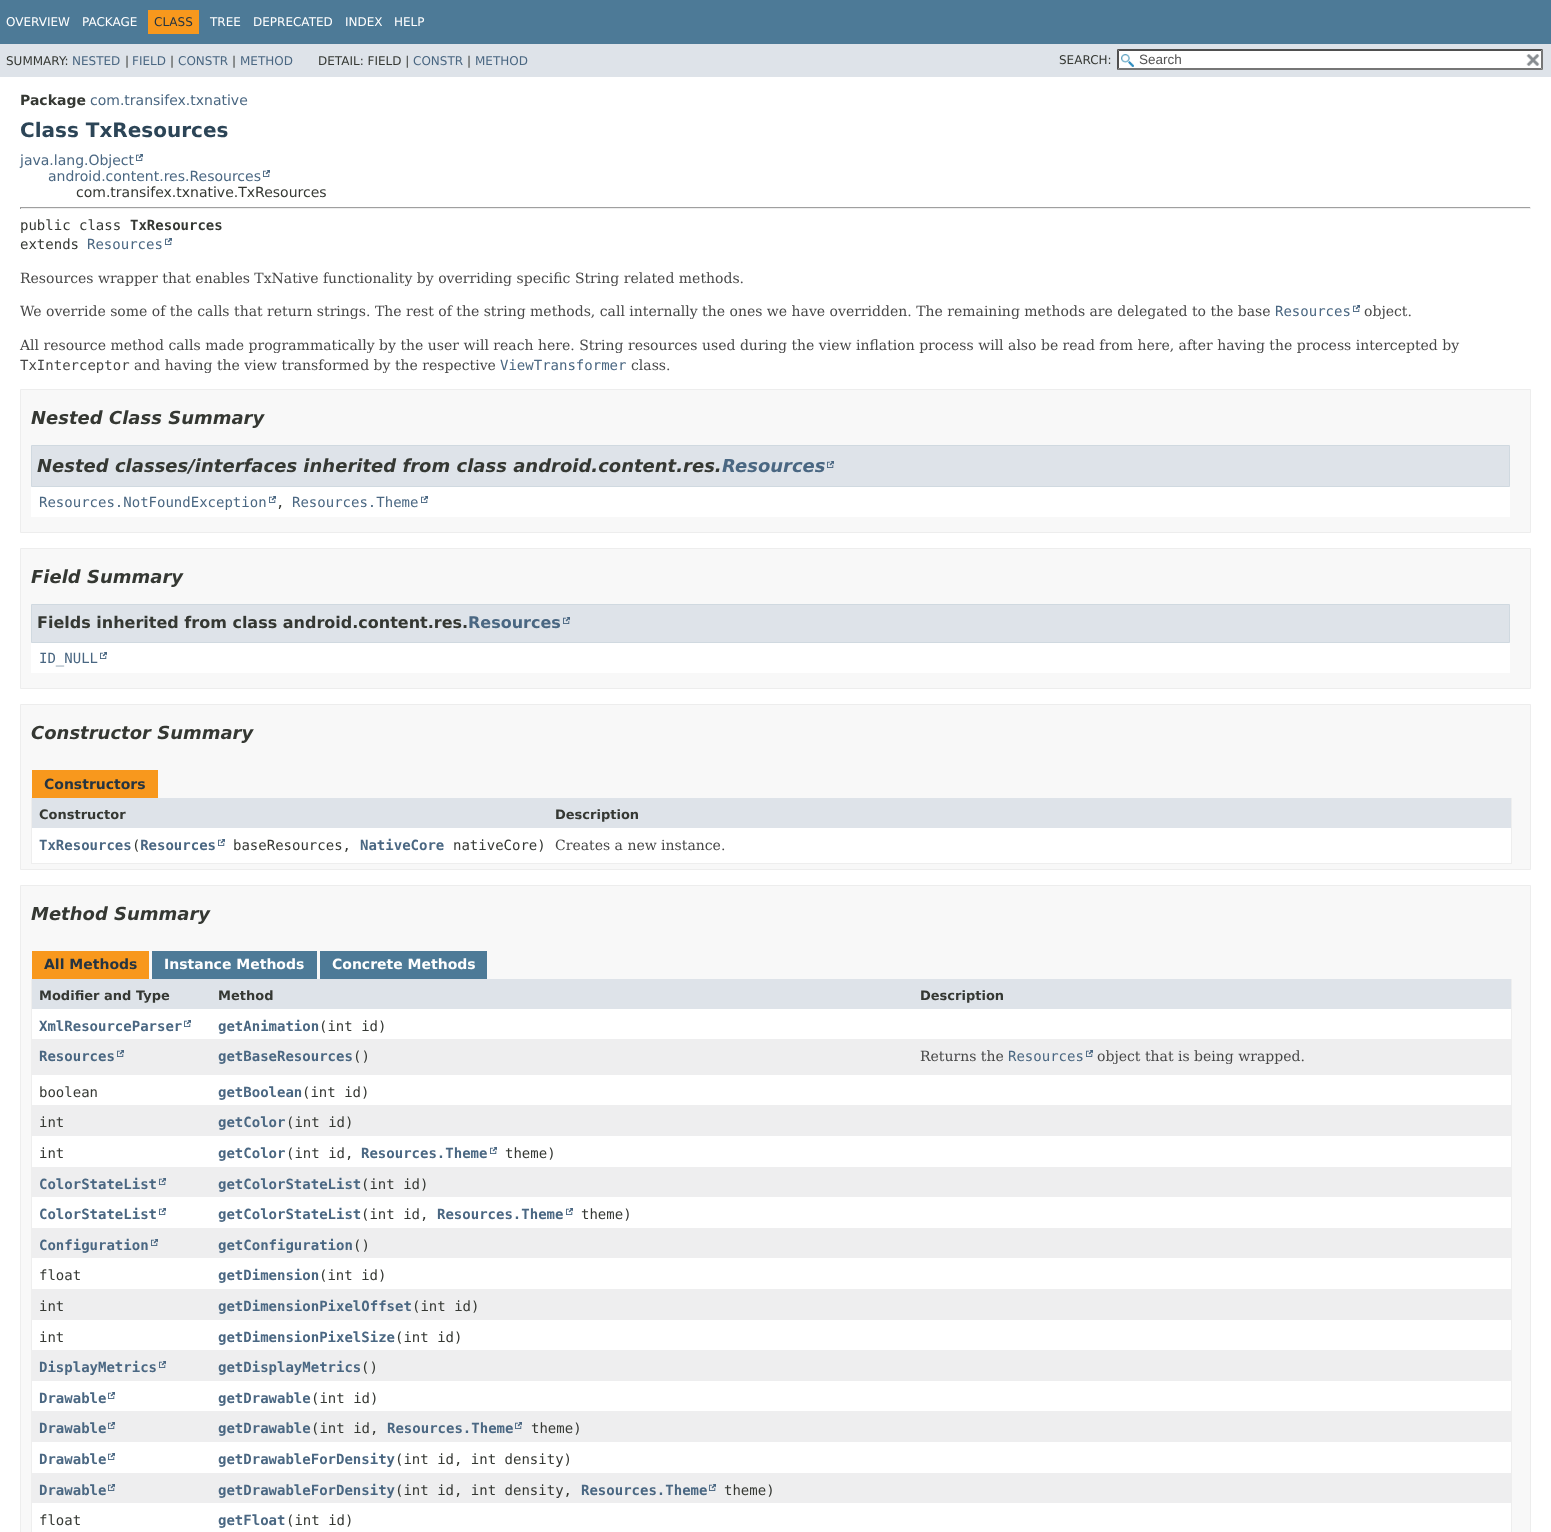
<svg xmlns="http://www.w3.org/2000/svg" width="1551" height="1532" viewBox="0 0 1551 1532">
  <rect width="100%" height="100%" fill="#fff"/>
  <path d="M0 0h1551v44H0z" fill="#4d7a97"/>
  <path d="M148 10h51v24H148z" fill="#f8981d"/>
  <path d="M0 44h1551v33H0z" fill="#dee3e9"/>
  <path d="M1117 49h426v21H1117z" fill="#fff"/>
  <image x="1121" y="54" width="13" height="13" href="img/1.png"/>
  <path d="M1117 49H1543L1541 51H1119Z" fill="#4f4f4f"/>
  <path d="M1543 49V70L1541 68V51Z" fill="#767676"/>
  <path d="M1543 70H1117L1119 68H1541Z" fill="#767676"/>
  <path d="M1117 70V49L1119 51V68Z" fill="#4f4f4f"/>
  <image x="1526" y="54" width="14" height="12" href="img/2.png"/>
  <image x="136" y="154" width="7" height="7" href="img/3.png"/>
  <image x="263" y="170" width="7" height="7" href="img/3.png"/>
  <path d="M20 207h1511v1H20z" fill="#9f9f9f"/>
  <path d="M1530 207h1v2H1530z" fill="#eee"/>
  <path d="M20 208h1511v1H20z" fill="#eee"/>
  <path d="M20 207h1v2H20z" fill="#9f9f9f"/>
  <image x="165" y="238" width="7" height="7" href="img/3.png"/>
  <image x="1353" y="305" width="7" height="7" href="img/3.png"/>
  <path d="M20.5 389.5h1510v143H20.5z" fill="#f8f8f8" stroke="#ededed"/>
  <path d="M31 487h1479v30H31z" fill="#fff"/>
  <path d="M31.5 445.5h1478v41H31.5z" fill="#dee3e9" stroke="#d0d9e0"/>
  <image x="827" y="461" width="7" height="7" href="img/4.png"/>
  <image x="269" y="496" width="7" height="7" href="img/3.png"/>
  <image x="421" y="496" width="7" height="7" href="img/3.png"/>
  <path d="M20.5 548.5h1510v140H20.5z" fill="#f8f8f8" stroke="#ededed"/>
  <path d="M31 643h1479v30H31z" fill="#fff"/>
  <path d="M31.5 604.5h1478v38H31.5z" fill="#dee3e9" stroke="#d0d9e0"/>
  <image x="563" y="617" width="7" height="7" href="img/4.png"/>
  <image x="100" y="652" width="7" height="7" href="img/3.png"/>
  <path d="M20.5 704.5h1510v165H20.5z" fill="#f8f8f8" stroke="#ededed"/>
  <path d="M32 770h126v28H32z" fill="#f8981d"/>
  <path d="M1511 798h1v66H1511z" fill="#eee"/>
  <path d="M31 863h1481v1H31z" fill="#eee"/>
  <path d="M31 798h1v66H31z" fill="#eee"/>
  <path d="M32 798h1479v30H32z" fill="#dee3e9"/>
  <path d="M32 828h1479v35H32z" fill="#fff"/>
  <image x="218" y="839" width="7" height="7" href="img/3.png"/>
  <path d="M20.5 885.5h1510v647H20.5z" fill="#f8f8f8" stroke="#ededed"/>
  <path d="M32 951h117v28H32z" fill="#f8981d"/>
  <path d="M152 951h165v28H152z" fill="#4d7a97"/>
  <path d="M320 951h167v28H320z" fill="#4d7a97"/>
  <path d="M1511 979h1v553H1511z" fill="#eee"/>
  <path d="M31 979h1v553H31z" fill="#eee"/>
  <path d="M32 979h881v30H32z" fill="#dee3e9"/>
  <path d="M913 979h598v30H913z" fill="#dee3e9"/>
  <path d="M32 1009h881v30H32z" fill="#fff"/>
  <image x="184" y="1020" width="7" height="7" href="img/3.png"/>
  <path d="M913 1009h598v30H913z" fill="#fff"/>
  <path d="M32 1039h881v36H32z" fill="#eeeeef"/>
  <image x="117" y="1050" width="7" height="7" href="img/5.png"/>
  <path d="M913 1039h598v36H913z" fill="#eeeeef"/>
  <image x="1086" y="1050" width="7" height="7" href="img/5.png"/>
  <path d="M32 1075h881v30H32z" fill="#fff"/>
  <path d="M913 1075h598v30H913z" fill="#fff"/>
  <path d="M32 1105h881v31H32z" fill="#eeeeef"/>
  <path d="M913 1105h598v31H913z" fill="#eeeeef"/>
  <path d="M32 1136h881v31H32z" fill="#fff"/>
  <image x="490" y="1147" width="7" height="7" href="img/3.png"/>
  <path d="M913 1136h598v31H913z" fill="#fff"/>
  <path d="M32 1167h881v30H32z" fill="#eeeeef"/>
  <image x="159" y="1178" width="7" height="7" href="img/5.png"/>
  <path d="M913 1167h598v30H913z" fill="#eeeeef"/>
  <path d="M32 1197h881v31H32z" fill="#fff"/>
  <image x="159" y="1208" width="7" height="7" href="img/3.png"/>
  <image x="566" y="1208" width="7" height="7" href="img/3.png"/>
  <path d="M913 1197h598v31H913z" fill="#fff"/>
  <path d="M32 1228h881v30H32z" fill="#eeeeef"/>
  <image x="151" y="1239" width="7" height="7" href="img/5.png"/>
  <path d="M913 1228h598v30H913z" fill="#eeeeef"/>
  <path d="M32 1258h881v31H32z" fill="#fff"/>
  <path d="M913 1258h598v31H913z" fill="#fff"/>
  <path d="M32 1289h881v31H32z" fill="#eeeeef"/>
  <path d="M913 1289h598v31H913z" fill="#eeeeef"/>
  <path d="M32 1320h881v30H32z" fill="#fff"/>
  <path d="M913 1320h598v30H913z" fill="#fff"/>
  <path d="M32 1350h881v31H32z" fill="#eeeeef"/>
  <image x="159" y="1361" width="7" height="7" href="img/5.png"/>
  <path d="M913 1350h598v31H913z" fill="#eeeeef"/>
  <path d="M32 1381h881v30H32z" fill="#fff"/>
  <image x="108" y="1392" width="7" height="7" href="img/3.png"/>
  <path d="M913 1381h598v30H913z" fill="#fff"/>
  <path d="M32 1411h881v31H32z" fill="#eeeeef"/>
  <image x="108" y="1422" width="7" height="7" href="img/5.png"/>
  <image x="515" y="1422" width="7" height="7" href="img/5.png"/>
  <path d="M913 1411h598v31H913z" fill="#eeeeef"/>
  <path d="M32 1442h881v31H32z" fill="#fff"/>
  <image x="108" y="1453" width="7" height="7" href="img/3.png"/>
  <path d="M913 1442h598v31H913z" fill="#fff"/>
  <path d="M32 1473h881v30H32z" fill="#eeeeef"/>
  <image x="108" y="1484" width="7" height="7" href="img/5.png"/>
  <image x="709" y="1484" width="7" height="7" href="img/5.png"/>
  <path d="M913 1473h598v30H913z" fill="#eeeeef"/>
  <path d="M32 1503h881v29H32z" fill="#fff"/>
  <path d="M913 1503h598v29H913z" fill="#fff"/>
  <g font-family="DejaVu Sans" font-size="12" fill="#fff">
    <text x="6" y="26">OVERVIEW</text>
    <text x="82" y="26">PACKAGE</text>
  </g>
  <text x="154" y="26" font-family="DejaVu Sans" font-size="12" fill="#253441">CLASS</text>
  <g font-family="DejaVu Sans" font-size="12" fill="#fff">
    <text x="210" y="26">TREE</text>
    <text x="253" y="26">DEPRECATED</text>
    <text x="345" y="26">INDEX</text>
    <text x="394" y="26">HELP</text>
  </g>
  <text x="6" y="65" font-family="DejaVu Sans" font-size="12" fill="#353833">SUMMARY:</text>
  <text x="72" y="65" font-family="DejaVu Sans" font-size="12" fill="#4a6782">NESTED</text>
  <text x="125" y="65" font-family="DejaVu Sans" font-size="12" fill="#353833">|</text>
  <text x="132" y="65" font-family="DejaVu Sans" font-size="12" fill="#4a6782">FIELD</text>
  <text x="170" y="65" font-family="DejaVu Sans" font-size="12" fill="#353833">|</text>
  <text x="178" y="65" font-family="DejaVu Sans" font-size="12" fill="#4a6782">CONSTR</text>
  <text x="232" y="65" font-family="DejaVu Sans" font-size="12" fill="#353833">|</text>
  <text x="240" y="65" font-family="DejaVu Sans" font-size="12" fill="#4a6782">METHOD</text>
  <text x="318" y="65" font-family="DejaVu Sans" font-size="12" fill="#353833">DETAIL: FIELD |</text>
  <text x="413" y="65" font-family="DejaVu Sans" font-size="12" fill="#4a6782">CONSTR</text>
  <text x="467" y="65" font-family="DejaVu Sans" font-size="12" fill="#353833">|</text>
  <text x="475" y="65" font-family="DejaVu Sans" font-size="12" fill="#4a6782">METHOD</text>
  <text x="1059" y="64" font-family="DejaVu Sans" font-size="12" fill="#353833">SEARCH:</text>
  <text x="1139" y="64" font-family="Liberation Sans" font-size="13.5" fill="#545454">Search</text>
  <text x="20" y="105" font-family="DejaVu Sans" font-size="14" font-weight="bold" fill="#353833">Package</text>
  <text x="90" y="105" font-family="DejaVu Sans" font-size="14" fill="#4a6782">com.transifex.txnative</text>
  <text x="20" y="137" font-family="DejaVu Sans" font-size="20" font-weight="bold" fill="#2c4557">Class TxResources</text>
  <g font-family="DejaVu Sans" font-size="14" fill="#4a6782">
    <text x="20" y="165">java.lang.Object</text>
    <text x="48" y="181">android.content.res.Resources</text>
  </g>
  <text x="76" y="197" font-family="DejaVu Sans" font-size="14" fill="#353833">com.transifex.txnative.TxResources</text>
  <text x="20" y="230" font-family="DejaVu Sans Mono" font-size="14" fill="#353833">public class</text>
  <text x="130" y="230" font-family="DejaVu Sans Mono" font-size="14" font-weight="bold" fill="#353833">TxResources</text>
  <text x="20" y="249" font-family="DejaVu Sans Mono" font-size="14" fill="#353833">extends</text>
  <text x="87" y="249" font-family="DejaVu Sans Mono" font-size="14" fill="#4a6782">Resources</text>
  <g font-family="DejaVu Serif" font-size="14" fill="#474747">
    <text x="20" y="283">Resources wrapper that enables TxNative functionality by overriding specific String related methods.</text>
    <text x="20" y="316">We override some of the calls that return strings. The rest of the string methods, call internally the ones we have overridden. The remaining methods are delegated to the base</text>
  </g>
  <text x="1275" y="316" font-family="DejaVu Sans Mono" font-size="14" fill="#4a6782">Resources</text>
  <g font-family="DejaVu Serif" font-size="14" fill="#474747">
    <text x="1364" y="316">object.</text>
    <text x="20" y="350">All resource method calls made programmatically by the user will reach here. String resources used during the view inflation process will also be read from here, after having the process intercepted by</text>
  </g>
  <text x="20" y="370" font-family="DejaVu Sans Mono" font-size="14" fill="#474747">TxInterceptor</text>
  <text x="134" y="370" font-family="DejaVu Serif" font-size="14" fill="#474747">and having the view transformed by the respective</text>
  <text x="500" y="370" font-family="DejaVu Sans Mono" font-size="14" fill="#4a6782">ViewTransformer</text>
  <text x="631" y="370" font-family="DejaVu Serif" font-size="14" fill="#474747">class.</text>
  <g font-family="DejaVu Sans" font-size="18" font-weight="bold" font-style="italic" fill="#353833">
    <text x="31" y="424">Nested Class Summary</text>
    <text x="37" y="472">Nested classes/interfaces inherited from class android.content.res.</text>
  </g>
  <text x="722" y="472" font-family="DejaVu Sans" font-size="18" font-weight="bold" font-style="italic" fill="#4a6782">Resources</text>
  <text x="39" y="507" font-family="DejaVu Sans Mono" font-size="14" fill="#4a6782">Resources.NotFoundException</text>
  <text x="276" y="507" font-family="DejaVu Sans Mono" font-size="14" fill="#353833">,</text>
  <text x="292" y="507" font-family="DejaVu Sans Mono" font-size="14" fill="#4a6782">Resources.Theme</text>
  <text x="31" y="583" font-family="DejaVu Sans" font-size="18" font-weight="bold" font-style="italic" fill="#353833">Field Summary</text>
  <text x="37" y="628" font-family="DejaVu Sans" font-size="16" font-weight="bold" fill="#353833">Fields inherited from class android.content.res.</text>
  <text x="468" y="628" font-family="DejaVu Sans" font-size="16" font-weight="bold" fill="#4a6782">Resources</text>
  <text x="39" y="663" font-family="DejaVu Sans Mono" font-size="14" fill="#4a6782">ID_NULL</text>
  <text x="31" y="739" font-family="DejaVu Sans" font-size="18" font-weight="bold" font-style="italic" fill="#353833">Constructor Summary</text>
  <text x="44" y="789" font-family="DejaVu Sans" font-size="14" font-weight="bold" fill="#253441">Constructors</text>
  <g font-family="DejaVu Sans" font-size="13" font-weight="bold" fill="#353833">
    <text x="39" y="819">Constructor</text>
    <text x="555" y="819">Description</text>
  </g>
  <g font-family="DejaVu Sans Mono" font-size="14" font-weight="bold" fill="#4a6782">
    <text x="39" y="850">TxResources Resources</text>
    <text x="360" y="850">NativeCore</text>
  </g>
  <g font-family="DejaVu Sans Mono" font-size="14" fill="#353833">
    <text x="132" y="850">(</text>
    <text x="233" y="850">baseResources,</text>
    <text x="453" y="850">nativeCore)</text>
  </g>
  <text x="555" y="850" font-family="DejaVu Serif" font-size="14" fill="#474747">Creates a new instance.</text>
  <text x="31" y="920" font-family="DejaVu Sans" font-size="18" font-weight="bold" font-style="italic" fill="#353833">Method Summary</text>
  <text x="44" y="969" font-family="DejaVu Sans" font-size="14" font-weight="bold" fill="#253441">All Methods</text>
  <g font-family="DejaVu Sans" font-size="14" font-weight="bold" fill="#fff">
    <text x="164" y="969">Instance Methods</text>
    <text x="332" y="969">Concrete Methods</text>
  </g>
  <g font-family="DejaVu Sans" font-size="13" font-weight="bold" fill="#353833">
    <text x="39" y="1000">Modifier and Type</text>
    <text x="218" y="1000">Method</text>
    <text x="920" y="1000">Description</text>
  </g>
  <g font-family="DejaVu Sans Mono" font-size="14" font-weight="bold" fill="#4a6782">
    <text x="39" y="1031">XmlResourceParser</text>
    <text x="218" y="1031">getAnimation</text>
  </g>
  <text x="319" y="1031" font-family="DejaVu Sans Mono" font-size="14" fill="#353833">(int id)</text>
  <g font-family="DejaVu Sans Mono" font-size="14" font-weight="bold" fill="#4a6782">
    <text x="39" y="1061">Resources</text>
    <text x="218" y="1061">getBaseResources</text>
  </g>
  <text x="353" y="1061" font-family="DejaVu Sans Mono" font-size="14" fill="#353833">()</text>
  <text x="920" y="1061" font-family="DejaVu Serif" font-size="14" fill="#474747">Returns the</text>
  <text x="1008" y="1061" font-family="DejaVu Sans Mono" font-size="14" fill="#4a6782">Resources</text>
  <text x="1097" y="1061" font-family="DejaVu Serif" font-size="14" fill="#474747">object that is being wrapped.</text>
  <text x="39" y="1097" font-family="DejaVu Sans Mono" font-size="14" fill="#353833">boolean</text>
  <text x="218" y="1097" font-family="DejaVu Sans Mono" font-size="14" font-weight="bold" fill="#4a6782">getBoolean</text>
  <g font-family="DejaVu Sans Mono" font-size="14" fill="#353833">
    <text x="302" y="1097">(int id)</text>
    <text x="39" y="1127">int</text>
  </g>
  <text x="218" y="1127" font-family="DejaVu Sans Mono" font-size="14" font-weight="bold" fill="#4a6782">getColor</text>
  <g font-family="DejaVu Sans Mono" font-size="14" fill="#353833">
    <text x="286" y="1127">(int id)</text>
    <text x="39" y="1158">int</text>
  </g>
  <text x="218" y="1158" font-family="DejaVu Sans Mono" font-size="14" font-weight="bold" fill="#4a6782">getColor</text>
  <text x="286" y="1158" font-family="DejaVu Sans Mono" font-size="14" fill="#353833">(int id,</text>
  <text x="361" y="1158" font-family="DejaVu Sans Mono" font-size="14" font-weight="bold" fill="#4a6782">Resources.Theme</text>
  <text x="505" y="1158" font-family="DejaVu Sans Mono" font-size="14" fill="#353833">theme)</text>
  <g font-family="DejaVu Sans Mono" font-size="14" font-weight="bold" fill="#4a6782">
    <text x="39" y="1189">ColorStateList</text>
    <text x="218" y="1189">getColorStateList</text>
  </g>
  <text x="361" y="1189" font-family="DejaVu Sans Mono" font-size="14" fill="#353833">(int id)</text>
  <g font-family="DejaVu Sans Mono" font-size="14" font-weight="bold" fill="#4a6782">
    <text x="39" y="1219">ColorStateList</text>
    <text x="218" y="1219">getColorStateList</text>
  </g>
  <text x="361" y="1219" font-family="DejaVu Sans Mono" font-size="14" fill="#353833">(int id,</text>
  <text x="437" y="1219" font-family="DejaVu Sans Mono" font-size="14" font-weight="bold" fill="#4a6782">Resources.Theme</text>
  <text x="581" y="1219" font-family="DejaVu Sans Mono" font-size="14" fill="#353833">theme)</text>
  <g font-family="DejaVu Sans Mono" font-size="14" font-weight="bold" fill="#4a6782">
    <text x="39" y="1250">Configuration</text>
    <text x="218" y="1250">getConfiguration</text>
  </g>
  <g font-family="DejaVu Sans Mono" font-size="14" fill="#353833">
    <text x="353" y="1250">()</text>
    <text x="39" y="1280">float</text>
  </g>
  <text x="218" y="1280" font-family="DejaVu Sans Mono" font-size="14" font-weight="bold" fill="#4a6782">getDimension</text>
  <g font-family="DejaVu Sans Mono" font-size="14" fill="#353833">
    <text x="319" y="1280">(int id)</text>
    <text x="39" y="1311">int</text>
  </g>
  <text x="218" y="1311" font-family="DejaVu Sans Mono" font-size="14" font-weight="bold" fill="#4a6782">getDimensionPixelOffset</text>
  <g font-family="DejaVu Sans Mono" font-size="14" fill="#353833">
    <text x="412" y="1311">(int id)</text>
    <text x="39" y="1342">int</text>
  </g>
  <text x="218" y="1342" font-family="DejaVu Sans Mono" font-size="14" font-weight="bold" fill="#4a6782">getDimensionPixelSize</text>
  <text x="395" y="1342" font-family="DejaVu Sans Mono" font-size="14" fill="#353833">(int id)</text>
  <g font-family="DejaVu Sans Mono" font-size="14" font-weight="bold" fill="#4a6782">
    <text x="39" y="1372">DisplayMetrics</text>
    <text x="218" y="1372">getDisplayMetrics</text>
  </g>
  <text x="361" y="1372" font-family="DejaVu Sans Mono" font-size="14" fill="#353833">()</text>
  <g font-family="DejaVu Sans Mono" font-size="14" font-weight="bold" fill="#4a6782">
    <text x="39" y="1403">Drawable</text>
    <text x="218" y="1403">getDrawable</text>
  </g>
  <text x="311" y="1403" font-family="DejaVu Sans Mono" font-size="14" fill="#353833">(int id)</text>
  <g font-family="DejaVu Sans Mono" font-size="14" font-weight="bold" fill="#4a6782">
    <text x="39" y="1433">Drawable</text>
    <text x="218" y="1433">getDrawable</text>
  </g>
  <text x="311" y="1433" font-family="DejaVu Sans Mono" font-size="14" fill="#353833">(int id,</text>
  <text x="387" y="1433" font-family="DejaVu Sans Mono" font-size="14" font-weight="bold" fill="#4a6782">Resources.Theme</text>
  <text x="531" y="1433" font-family="DejaVu Sans Mono" font-size="14" fill="#353833">theme)</text>
  <g font-family="DejaVu Sans Mono" font-size="14" font-weight="bold" fill="#4a6782">
    <text x="39" y="1464">Drawable</text>
    <text x="218" y="1464">getDrawableForDensity</text>
  </g>
  <text x="395" y="1464" font-family="DejaVu Sans Mono" font-size="14" fill="#353833">(int id, int density)</text>
  <g font-family="DejaVu Sans Mono" font-size="14" font-weight="bold" fill="#4a6782">
    <text x="39" y="1495">Drawable</text>
    <text x="218" y="1495">getDrawableForDensity</text>
  </g>
  <text x="395" y="1495" font-family="DejaVu Sans Mono" font-size="14" fill="#353833">(int id, int density,</text>
  <text x="581" y="1495" font-family="DejaVu Sans Mono" font-size="14" font-weight="bold" fill="#4a6782">Resources.Theme</text>
  <g font-family="DejaVu Sans Mono" font-size="14" fill="#353833">
    <text x="724" y="1495">theme)</text>
    <text x="39" y="1525">float</text>
  </g>
  <text x="218" y="1525" font-family="DejaVu Sans Mono" font-size="14" font-weight="bold" fill="#4a6782">getFloat</text>
  <text x="286" y="1525" font-family="DejaVu Sans Mono" font-size="14" fill="#353833">(int id)</text>
</svg>
